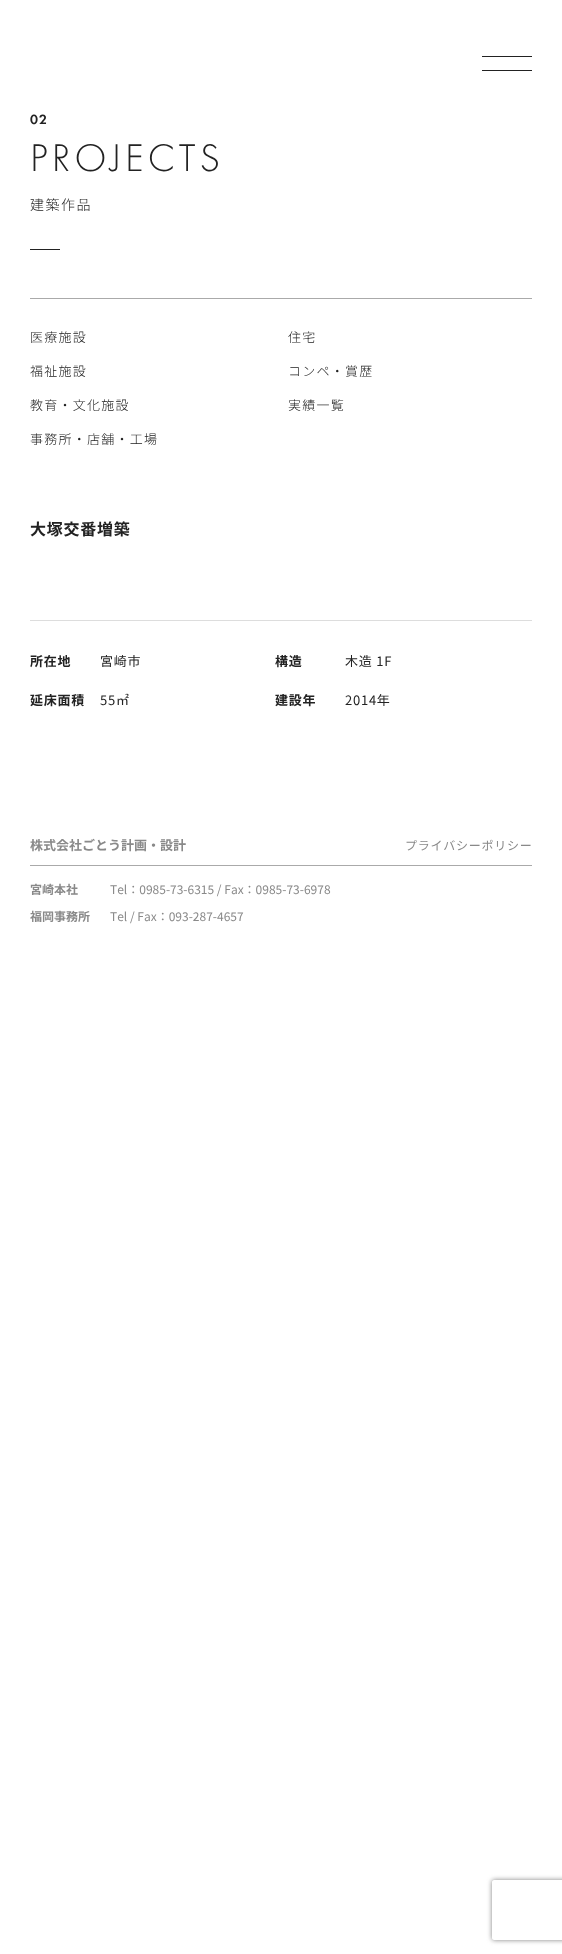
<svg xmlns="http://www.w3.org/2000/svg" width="562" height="1954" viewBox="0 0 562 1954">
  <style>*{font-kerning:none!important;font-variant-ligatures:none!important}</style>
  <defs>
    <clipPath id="clip1"><path d="M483 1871H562V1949H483ZM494 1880H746C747 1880 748 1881 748 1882V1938C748 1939 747 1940 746 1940H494C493 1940 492 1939 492 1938V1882C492 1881 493 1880 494 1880Z" clip-rule="evenodd"/></clipPath>
  </defs>
  <rect width="100%" height="100%" fill="#fff"/>
  <path d="M482 56h50v1H482z" fill="#222"/>
  <path d="M482 70h50v1H482z" fill="#222"/>
  <path d="M30 249h30v1H30z" fill="#222"/>
  <path d="M30 298h502v1H30z" fill="#aaa"/>
  <path d="M30 620h502v1H30z" fill="#ddd"/>
  <path d="M30 865h502v1H30z" fill="#aaa"/>
  <g clip-path="url(#clip1)">
    <rect x="492" y="1880" width="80" height="60" rx="2" fill="#808080" filter="blur(2.5px)"/>
  </g>
  <text x="30" y="124" font-family="Futura PT" font-size="14" font-weight="500" letter-spacing="1" fill="#222">02</text>
  <text x="30" y="171" font-family="Futura PT" font-size="40" font-weight="300" letter-spacing="4" fill="#222">PROJECTS</text>
  <text x="30" y="210" font-family="Noto Sans JP" font-size="14" font-weight="300" letter-spacing="1.5" fill="#222">建築作品</text>
  <g font-family="Noto Sans JP" font-size="13" font-weight="300" letter-spacing="1.25" fill="#222">
    <text x="30" y="342">医療施設</text>
    <text x="288" y="342">住宅</text>
    <text x="30" y="376">福祉施設</text>
    <text x="288" y="376">コンペ・賞歴</text>
    <text x="30" y="410">教育・文化施設</text>
    <text x="288" y="410">実績一覧</text>
    <text x="30" y="444">事務所・店舗・工場</text>
  </g>
  <text x="30" y="535" font-family="Noto Sans JP" font-size="16" font-weight="bold" letter-spacing="0.75" fill="#222">大塚交番増築</text>
  <text x="30" y="666" font-family="Noto Sans JP" font-size="13" font-weight="bold" letter-spacing="0.75" fill="#222">所在地</text>
  <text x="100" y="666" font-family="Noto Sans JP" font-size="13" letter-spacing="0.75" fill="#222">宮崎市</text>
  <text x="275" y="666" font-family="Noto Sans JP" font-size="13" font-weight="bold" letter-spacing="0.75" fill="#222">構造</text>
  <text x="345" y="666" font-family="Noto Sans JP" font-size="13" letter-spacing="0.75" fill="#222">木造 1F</text>
  <text x="30" y="705" font-family="Noto Sans JP" font-size="13" font-weight="bold" letter-spacing="0.75" fill="#222">延床面積</text>
  <text x="100" y="705" font-family="Noto Sans JP" font-size="13" letter-spacing="0.75" fill="#222">55㎡</text>
  <text x="275" y="705" font-family="Noto Sans JP" font-size="13" font-weight="bold" letter-spacing="0.75" fill="#222">建設年</text>
  <text x="345" y="705" font-family="Noto Sans JP" font-size="13" letter-spacing="0.75" fill="#222">2014年</text>
  <text x="30" y="850" font-family="Noto Sans JP" font-size="13" font-weight="bold" fill="#898989">株式会社ごとう計画・設計</text>
  <text x="405" y="850" font-family="Noto Sans JP" font-size="12" letter-spacing="0.75" fill="#898989">プライバシーポリシー</text>
  <text x="30" y="894" font-family="Noto Sans JP" font-size="12" font-weight="bold" fill="#898989">宮崎本社</text>
  <text x="110" y="894" font-family="Noto Sans JP" font-size="12" fill="#898989">Tel：0985-73-6315 / Fax：0985-73-6978</text>
  <text x="30" y="921" font-family="Noto Sans JP" font-size="12" font-weight="bold" fill="#898989">福岡事務所</text>
  <text x="110" y="921" font-family="Noto Sans JP" font-size="12" fill="#898989">Tel / Fax：093-287-4657</text>
</svg>
